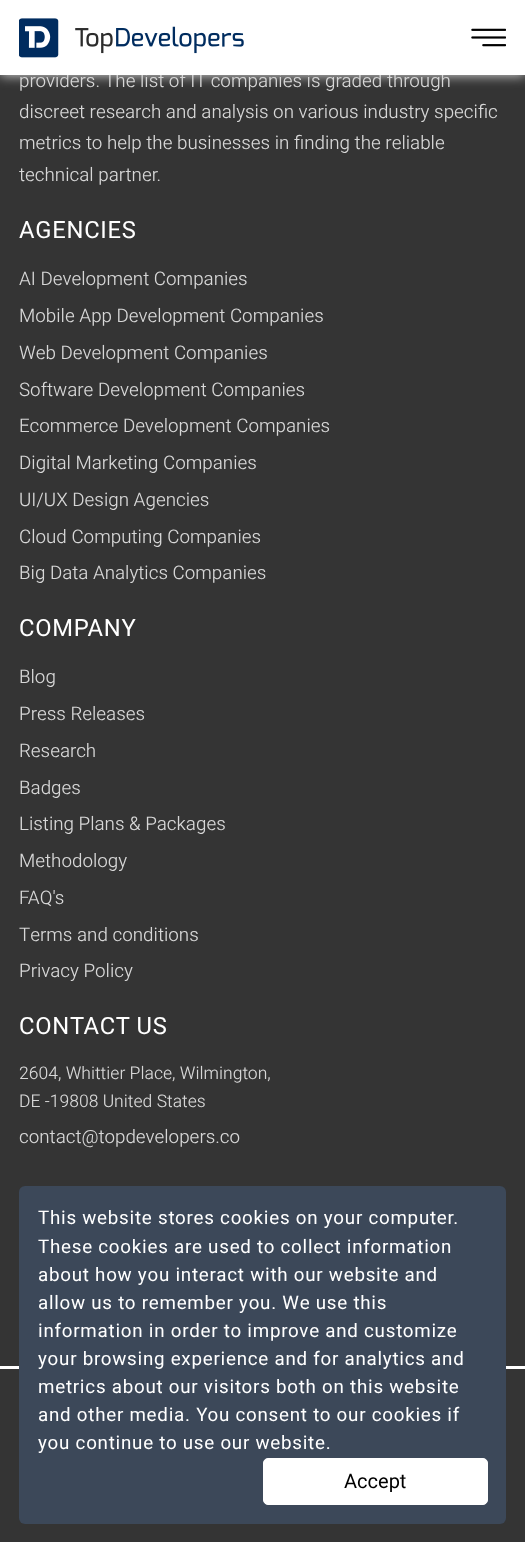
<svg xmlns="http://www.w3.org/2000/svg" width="525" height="1542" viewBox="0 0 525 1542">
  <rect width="100%" height="100%" fill="#343434"/>
  <path d="M0 1h525v75H0z" fill="#ccc" filter="blur(6px)"/>
  <path d="M0 1366h525v3H0z" fill="#fff"/>
  <rect x="19" y="1186" width="487" height="338" rx="6" fill="#3c4859"/>
  <rect x="263.5" y="1458.5" width="224" height="46" rx="4.5" fill="#fff" stroke="#fff"/>
  <text x="19" y="87" font-family="Heebo" font-size="18.75" font-weight="300" fill="#d7d7d7">providers. The list of IT companies is graded through</text>
  <path d="M0 0h525v75H0z" fill="#fff"/>
  <image x="471" y="28" width="35" height="19" href="img/2.png"/>
  <image x="19" y="18" width="225" height="40" href="img/1.png"/>
  <g font-family="Heebo" font-size="18.75" font-weight="300" fill="#d7d7d7">
    <text x="19" y="118">discreet research and analysis on various industry specific</text>
    <text x="19" y="149">metrics to help the businesses in finding the reliable</text>
    <text x="19" y="181">technical partner.</text>
  </g>
  <text x="19" y="238" font-family="Heebo" font-size="23.75" letter-spacing="0.75" fill="#fff">AGENCIES</text>
  <g font-family="Heebo" font-size="18.75" font-weight="300" fill="#d7d7d7">
    <text x="19" y="285">AI Development Companies</text>
    <text x="19" y="322">Mobile App Development Companies</text>
    <text x="19" y="359">Web Development Companies</text>
    <text x="19" y="396">Software Development Companies</text>
    <text x="19" y="432">Ecommerce Development Companies</text>
    <text x="19" y="469">Digital Marketing Companies</text>
    <text x="19" y="506">UI/UX Design Agencies</text>
    <text x="19" y="543">Cloud Computing Companies</text>
    <text x="19" y="579">Big Data Analytics Companies</text>
  </g>
  <text x="19" y="636" font-family="Heebo" font-size="23.75" letter-spacing="0.75" fill="#fff">COMPANY</text>
  <g font-family="Heebo" font-size="18.75" font-weight="300" fill="#d7d7d7">
    <text x="19" y="683">Blog</text>
    <text x="19" y="720">Press Releases</text>
    <text x="19" y="757">Research</text>
    <text x="19" y="794">Badges</text>
    <text x="19" y="830">Listing Plans &amp; Packages</text>
    <text x="19" y="867">Methodology</text>
    <text x="19" y="904">FAQ's</text>
    <text x="19" y="941">Terms and conditions</text>
    <text x="19" y="977">Privacy Policy</text>
  </g>
  <text x="19" y="1034" font-family="Heebo" font-size="23.75" letter-spacing="0.75" fill="#fff">CONTACT US</text>
  <g font-family="Heebo" font-size="17.5" font-weight="300" fill="#d7d7d7">
    <text x="19" y="1079">2604, Whittier Place, Wilmington,</text>
    <text x="19" y="1107">DE -19808 United States</text>
  </g>
  <text x="19" y="1143" font-family="Heebo" font-size="18.75" font-weight="300" fill="#d7d7d7">contact@topdevelopers.co</text>
  <g font-family="Heebo" font-size="18.75" letter-spacing="0.75" fill="#fff">
    <text x="38" y="1224">This website stores cookies on your computer.</text>
    <text x="38" y="1253">These cookies are used to collect information</text>
    <text x="38" y="1281">about how you interact with our website and</text>
    <text x="38" y="1309">allow us to remember you. We use this</text>
    <text x="38" y="1337">information in order to improve and customize</text>
    <text x="38" y="1365">your browsing experience and for analytics and</text>
    <text x="38" y="1393">metrics about our visitors both on this website</text>
    <text x="38" y="1421">and other media. You consent to our cookies if</text>
    <text x="38" y="1449">you continue to use our website.</text>
  </g>
  <text x="344" y="1488" font-family="Heebo" font-size="20" fill="#000">Accept</text>
</svg>
